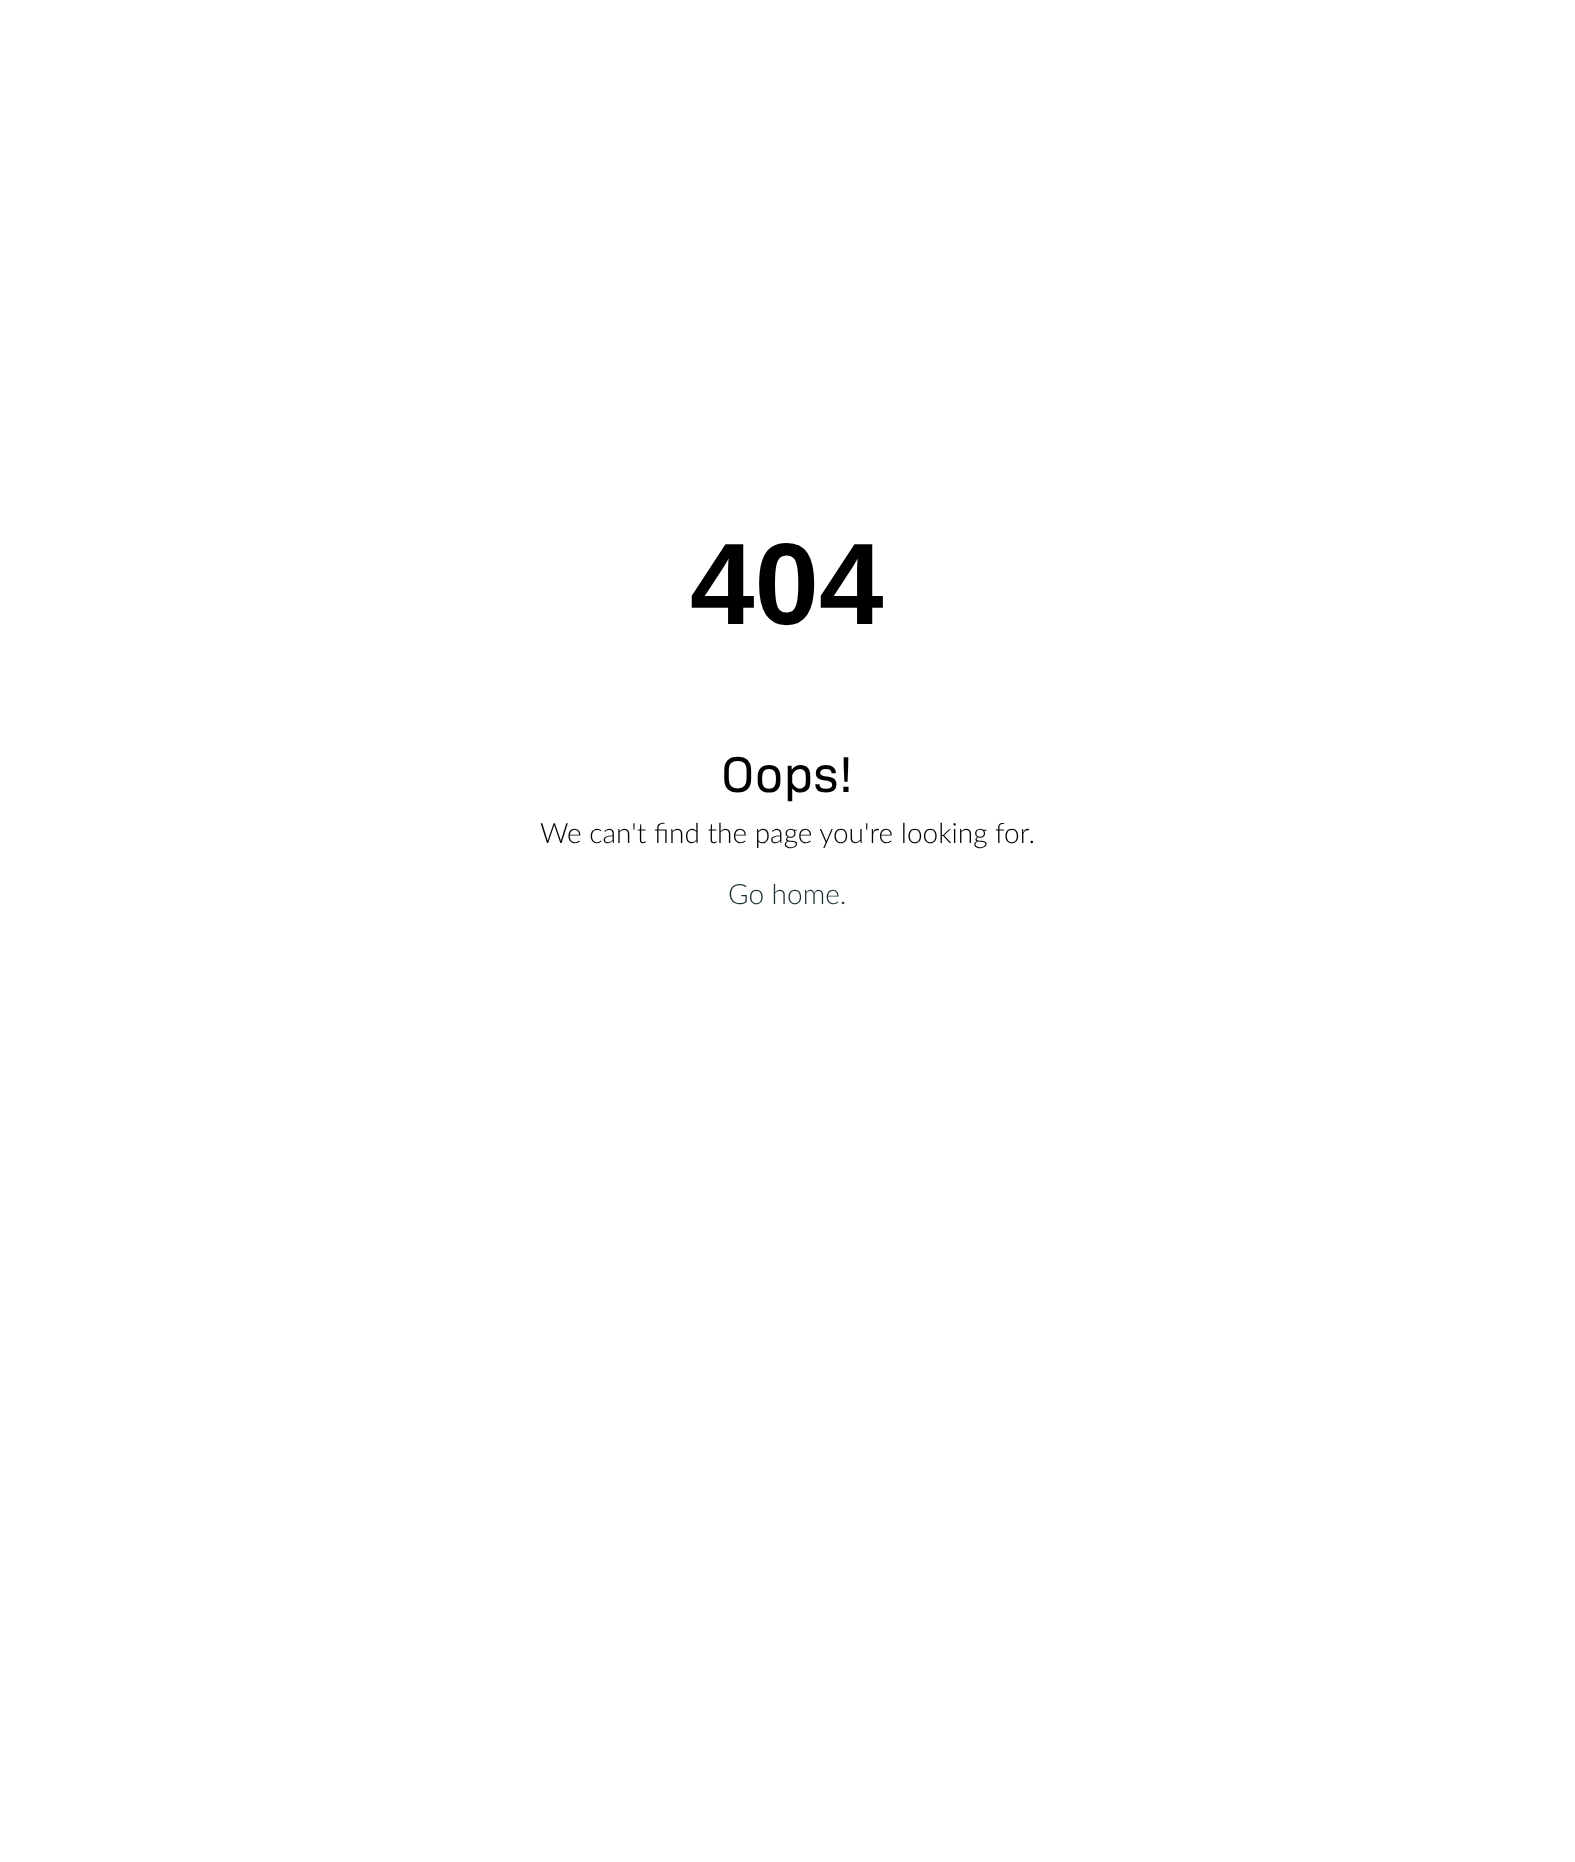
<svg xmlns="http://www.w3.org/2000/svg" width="1575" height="1862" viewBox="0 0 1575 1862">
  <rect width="100%" height="100%" fill="#fff"/>
  <text x="690" y="624" font-family="Liberation Sans" font-size="116" font-weight="bold" fill="#000">404</text>
  <text x="721" y="792" font-family="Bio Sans" font-size="51" fill="#000">Oops!</text>
  <text x="540" y="843" font-family="Lato" font-size="28" font-weight="300" fill="#000">We can't find the page you're looking for.</text>
  <text x="728" y="904" font-family="Lato" font-size="28" font-weight="300" fill="#1c3237">Go home.</text>
</svg>
